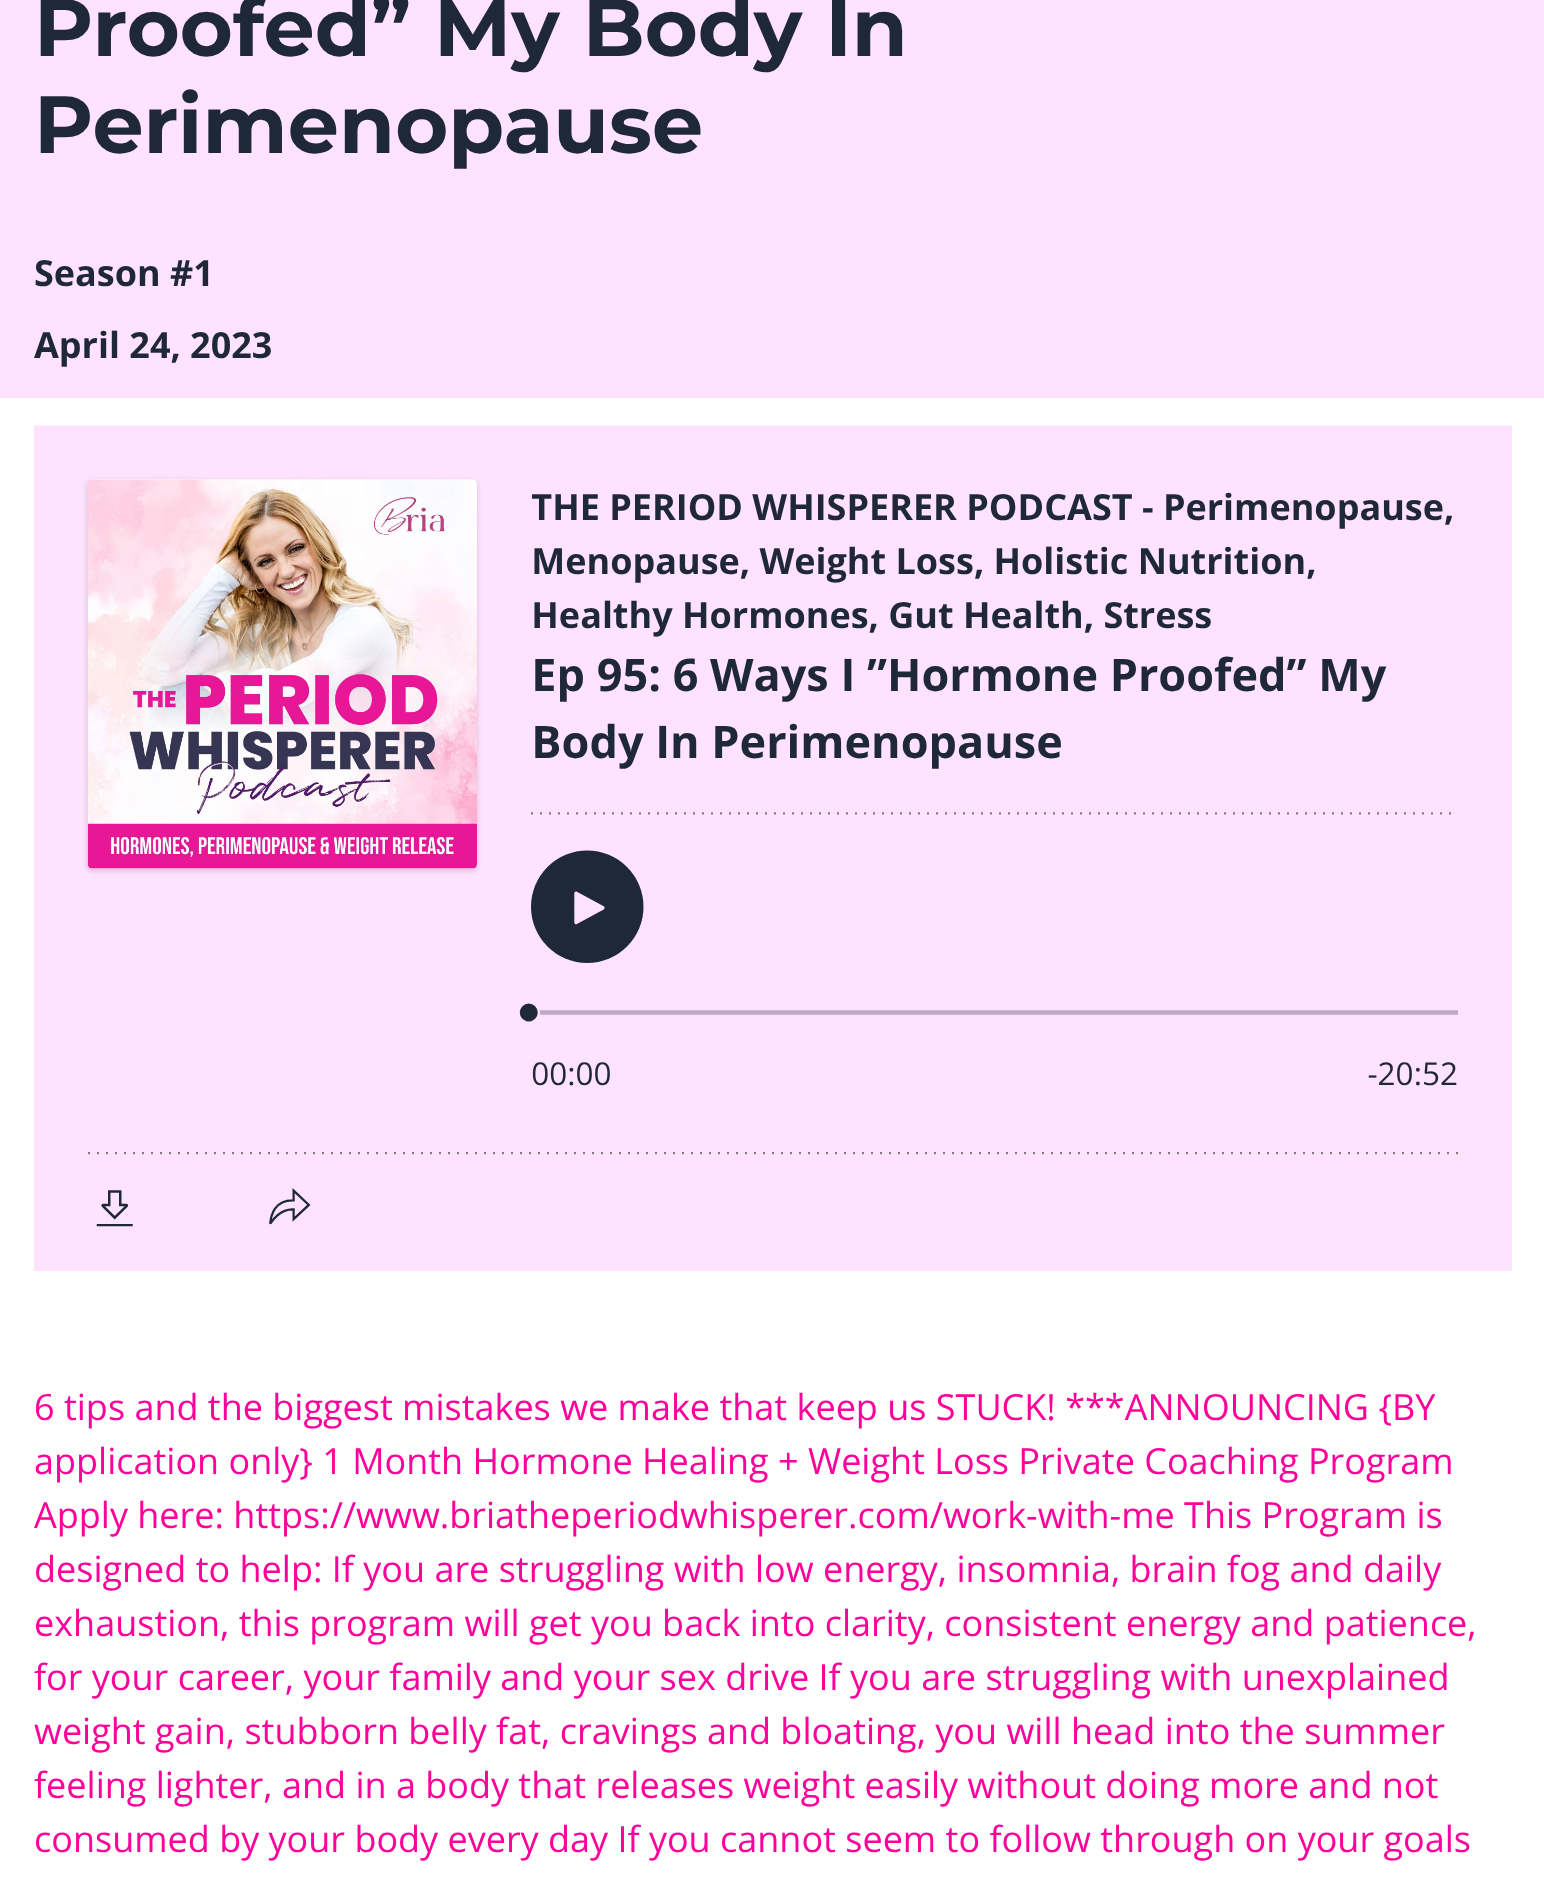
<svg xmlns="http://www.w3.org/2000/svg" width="1544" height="1897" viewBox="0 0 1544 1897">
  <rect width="100%" height="100%" fill="#fff"/>
  <path d="M0 0h1544v398H0z" fill="#ffe2fe"/>
  <image x="34" y="425" width="1478" height="846" href="img/1.png"/>
  <g font-family="Montserrat" font-size="81" font-weight="bold" fill="#1f2837">
    <text x="34" y="56">Proofed” My Body In</text>
    <text x="34" y="153">Perimenopause</text>
  </g>
  <g font-family="Open Sans" font-size="36" font-weight="bold" fill="#1f2837">
    <text x="34" y="286">Season #1</text>
    <text x="34" y="358">April 24, 2023</text>
  </g>
  <g font-family="Open Sans" font-size="36" fill="#fe019a">
    <text x="34" y="1420">6 tips and the biggest mistakes we make that keep us STUCK! ***ANNOUNCING {BY</text>
    <text x="34" y="1474">application only} 1 Month Hormone Healing + Weight Loss Private Coaching Program</text>
    <text x="34" y="1528">Apply here: https://www.briatheperiodwhisperer.com/work-with-me This Program is</text>
    <text x="34" y="1582">designed to help: If you are struggling with low energy, insomnia, brain fog and daily</text>
    <text x="34" y="1636">exhaustion, this program will get you back into clarity, consistent energy and patience,</text>
    <text x="34" y="1690">for your career, your family and your sex drive If you are struggling with unexplained</text>
    <text x="34" y="1744">weight gain, stubborn belly fat, cravings and bloating, you will head into the summer</text>
    <text x="34" y="1798">feeling lighter, and in a body that releases weight easily without doing more and not</text>
    <text x="34" y="1852">consumed by your body every day If you cannot seem to follow through on your goals</text>
  </g>
</svg>
